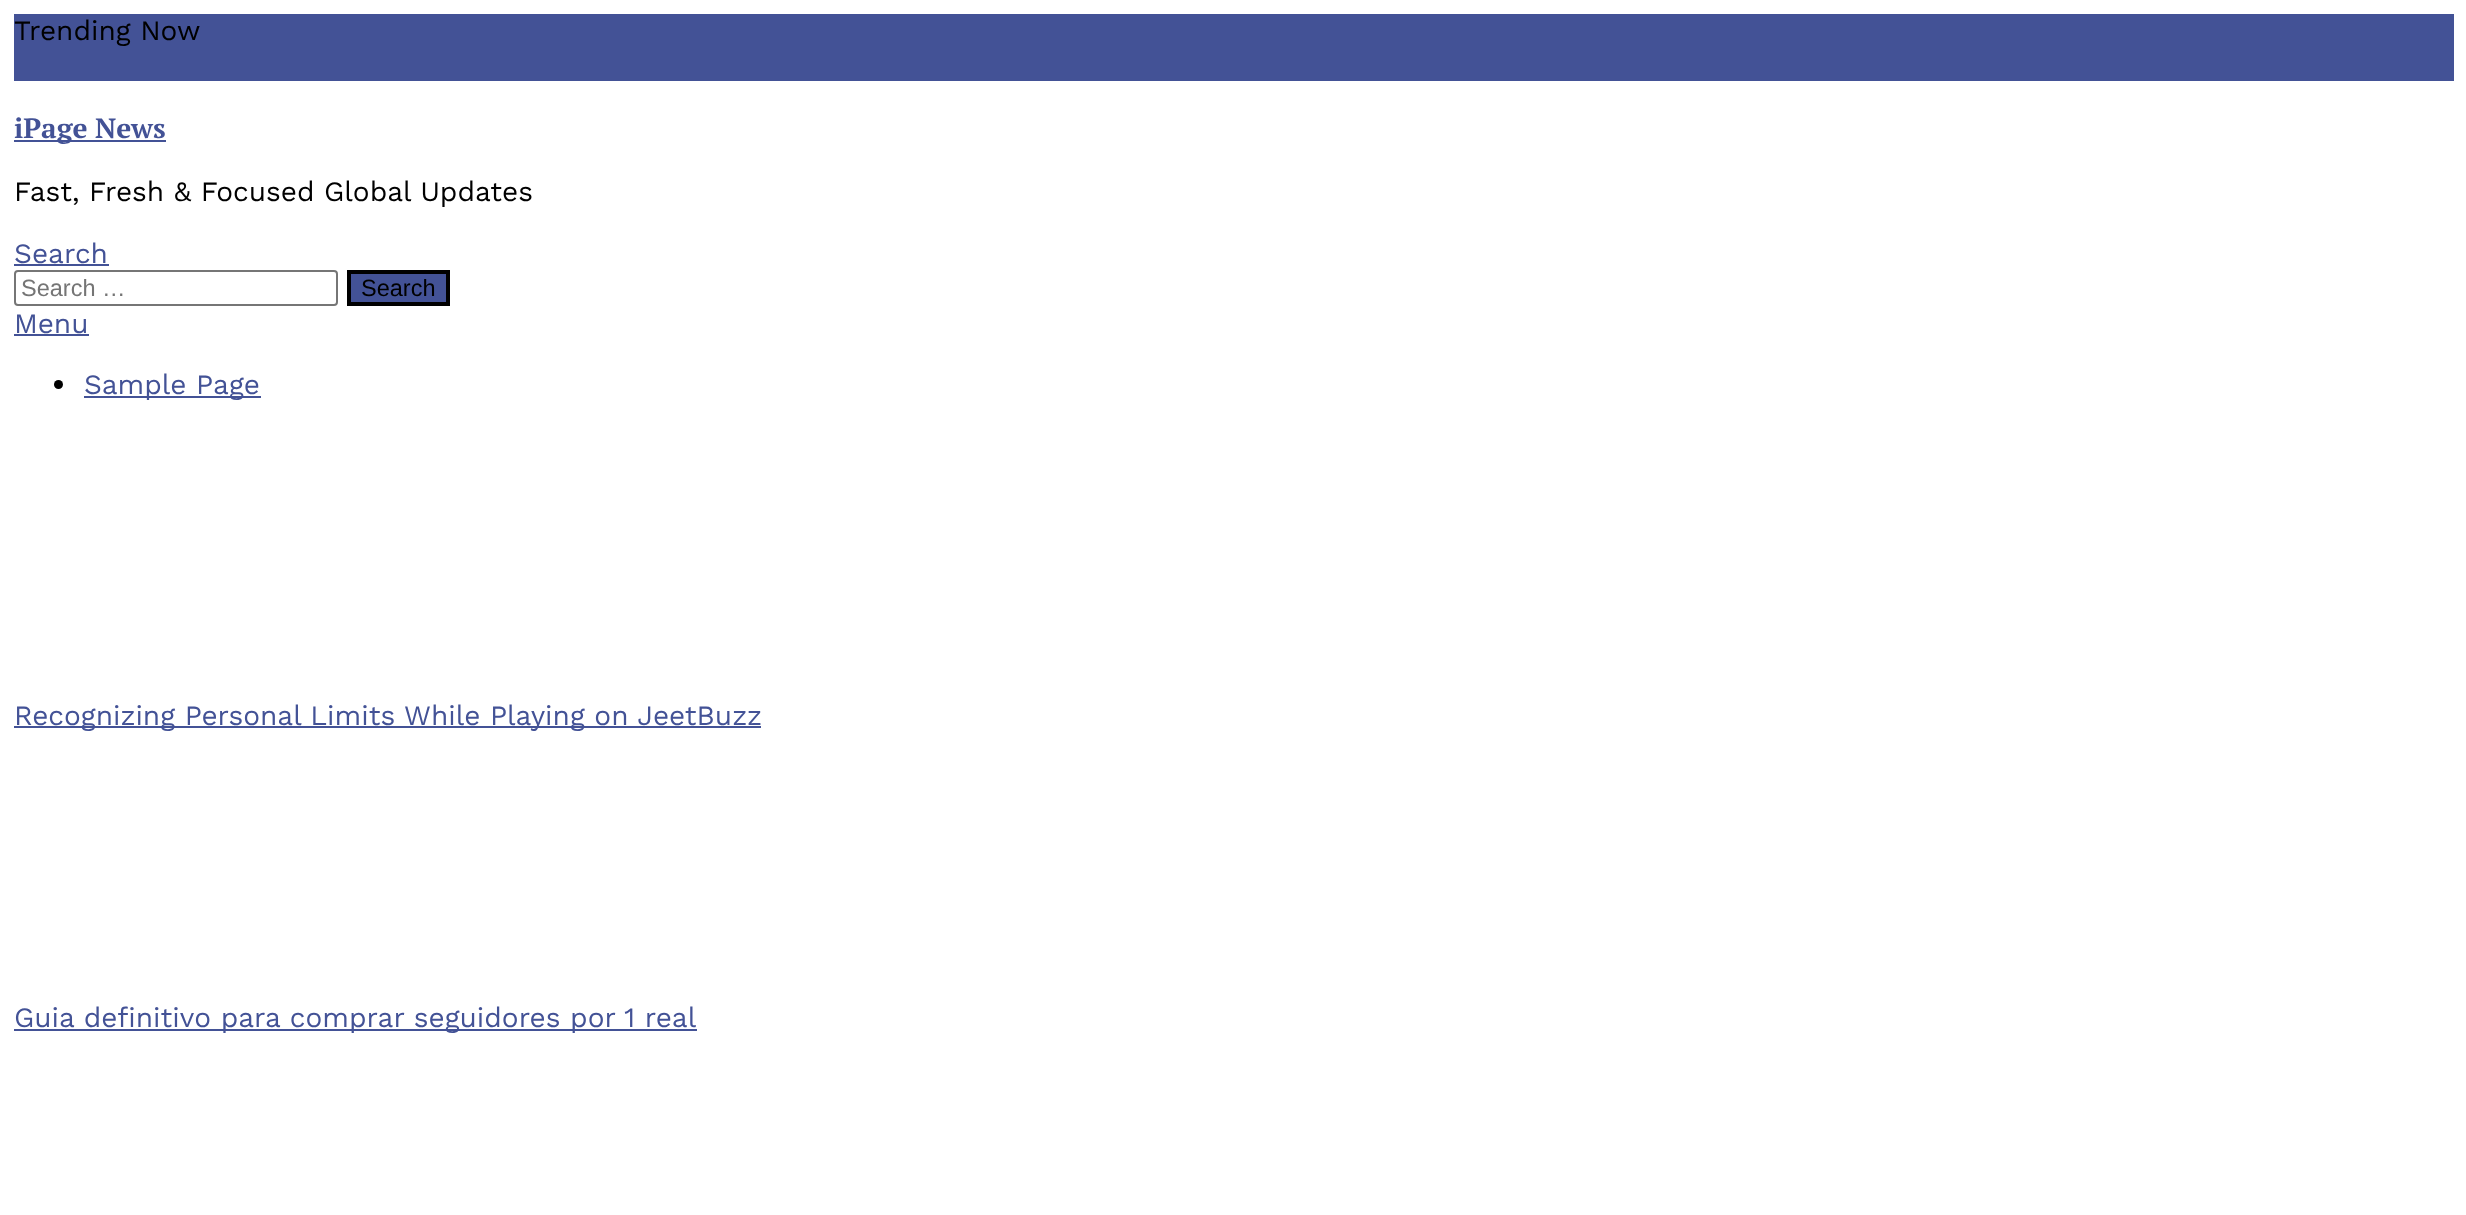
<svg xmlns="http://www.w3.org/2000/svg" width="2466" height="1215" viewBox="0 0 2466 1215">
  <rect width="100%" height="100%" fill="#fff"/>
  <path d="M14 14h2440v67H14z" fill="#435296"/>
  <path d="M14 140h152v2H14z" fill="#435296"/>
  <path d="M14 264h95v2H14z" fill="#435296"/>
  <rect x="15" y="271" width="322" height="34" rx="3" fill="none" stroke="#767676" stroke-width="2"/>
  <path d="M349 272h99v32H349z" fill="#435296" stroke="#000" stroke-width="4"/>
  <path d="M14 334h75v2H14z" fill="#435296"/>
  <circle cx="58.5" cy="384.5" r="4.5" fill="#000"/>
  <path d="M84 396h177v2H84z" fill="#435296"/>
  <path d="M14 726h747v2H14z" fill="#435296"/>
  <path d="M14 1029h683v2H14z" fill="#435296"/>
  <text x="14" y="40" font-family="Work Sans" font-size="28" fill="#000">Trending Now</text>
  <text x="14" y="138" font-family="PT Serif" font-size="28" font-weight="bold" fill="#435296">iPage News</text>
  <text x="14" y="201" font-family="Work Sans" font-size="28" fill="#000">Fast, Fresh &amp; Focused Global Updates</text>
  <text x="14" y="263" font-family="Work Sans" font-size="28" fill="#435296">Search</text>
  <text x="21" y="296" font-family="Liberation Sans" font-size="23.5" fill="#757575">Search …</text>
  <text x="361" y="296" font-family="Liberation Sans" font-size="23.5" fill="#000">Search</text>
  <g font-family="Work Sans" font-size="28" fill="#435296">
    <text x="14" y="333">Menu</text>
    <text x="84" y="394">Sample Page</text>
    <text x="14" y="725">Recognizing Personal Limits While Playing on JeetBuzz</text>
    <text x="14" y="1027">Guia definitivo para comprar seguidores por 1 real</text>
  </g>
</svg>
